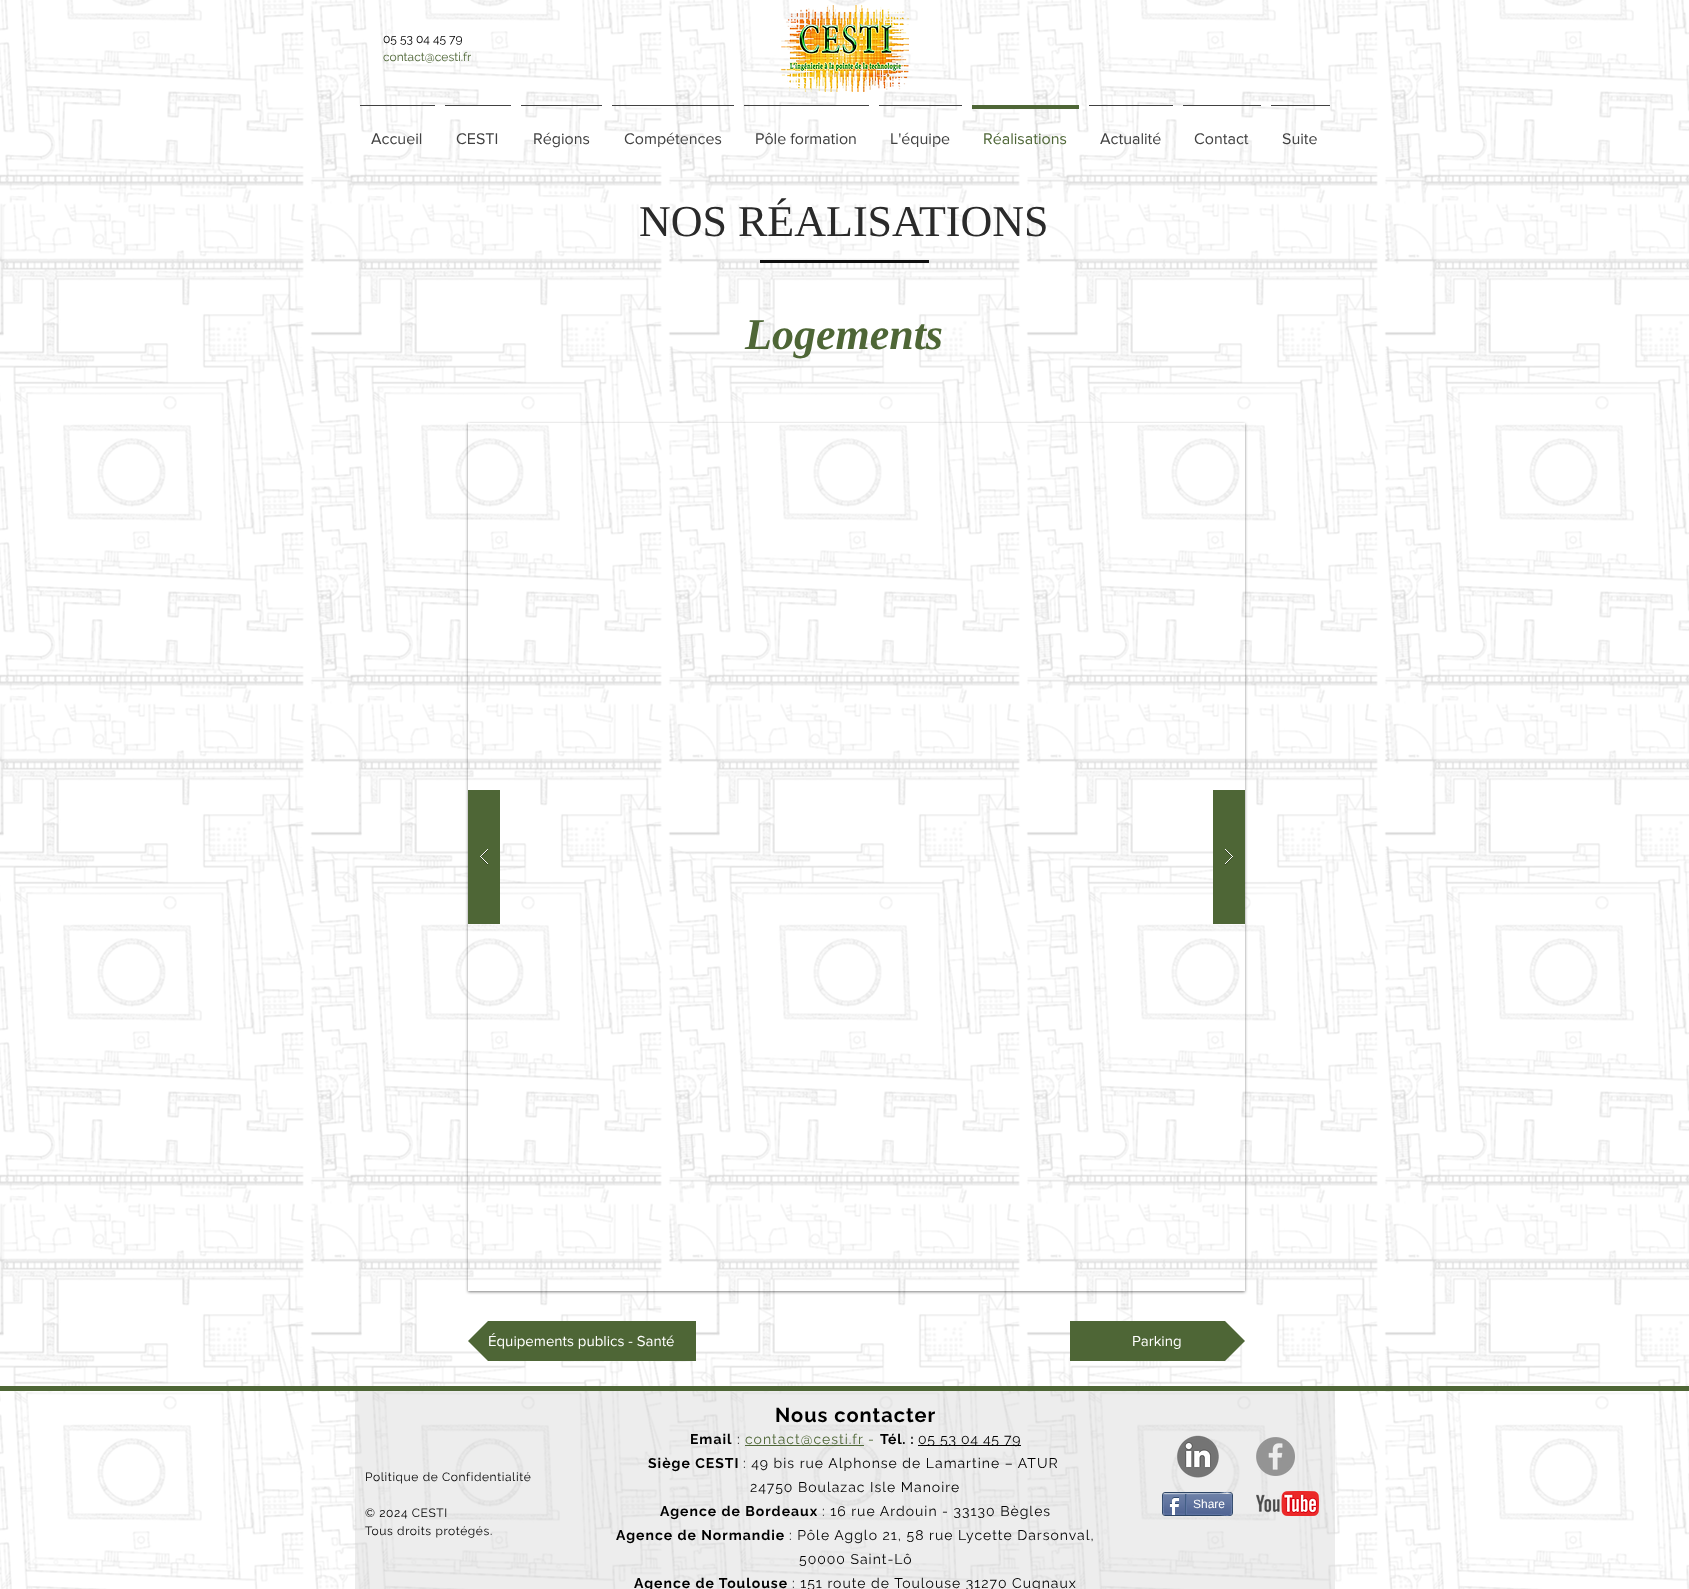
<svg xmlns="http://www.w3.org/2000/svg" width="1689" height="1589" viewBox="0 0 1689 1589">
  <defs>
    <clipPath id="clip1"><path d="M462 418H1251V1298H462ZM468 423H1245V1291H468Z" clip-rule="evenodd"/></clipPath>
    <clipPath id="clip2"><path d="M468 1321h228v40H468z"/></clipPath>
    <clipPath id="clip3"><path d="M1070 1321h175v40H1070z"/></clipPath>
  </defs>
  <rect width="100%" height="100%" fill="#fff"/>
  <image x="0" y="0" width="1689" height="1589" href="img/1.png"/>
  <image x="781" y="5" width="128" height="87" href="img/2.png"/>
  <path d="M360 105h75v1H360z" fill="#414141"/>
  <path d="M445 105h66v1H445z" fill="#414141"/>
  <path d="M521 105h81v1H521z" fill="#414141"/>
  <path d="M612 105h122v1H612z" fill="#414141"/>
  <path d="M744 105h125v1H744z" fill="#414141"/>
  <path d="M879 105h83v1H879z" fill="#414141"/>
  <path d="M972 105h107v4H972z" fill="#4e6636"/>
  <path d="M1089 105h84v1H1089z" fill="#414141"/>
  <path d="M1183 105h78v1H1183z" fill="#414141"/>
  <path d="M1271 105h59v1H1271z" fill="#414141"/>
  <path d="M760 260h169v3H760z" fill="#0f0f0f"/>
  <g clip-path="url(#clip1)">
    <path d="M468 424h777v868H468z" fill="#00000080" filter="blur(1.5px)"/>
  </g>
  <path d="M468 790h32v134H468z" fill="#4e6636"/>
  <image x="480" y="849" width="8" height="16" href="img/3.png"/>
  <path d="M1213 790h32v134H1213z" fill="#4e6636"/>
  <image x="1225" y="849" width="8" height="16" href="img/4.png"/>
  <g clip-path="url(#clip2)">
    <path d="M518 1341H468L518 1291ZM468 1341H518V1391Z" fill="#4e6636"/>
  </g>
  <path d="M518 1321h178v40H518z" fill="#4e6636"/>
  <path d="M1070 1321h125v40H1070z" fill="#4e6636"/>
  <g clip-path="url(#clip3)">
    <path d="M1245 1341H1195V1291ZM1195 1341H1245L1195 1391Z" fill="#4e6636"/>
  </g>
  <path d="M0 1386h1689v5H0z" fill="#4e6636"/>
  <path d="M355 1391h980v198H355z" fill="#c7c7c752"/>
  <path d="M745 1445h119v1H745z" fill="#4e6636"/>
  <path d="M918 1445h103v1H918z" fill="#000"/>
  <image x="1177" y="1435" width="42" height="43" href="img/5.png"/>
  <image x="1256" y="1437" width="39" height="39" href="img/6.png"/>
  <rect x="1162.5" y="1492.5" width="70" height="23" rx="2.5" fill="none" stroke="#2d4565"/>
  <image x="1163" y="1494" width="69" height="21" href="img/7.png"/>
  <path d="M1164 1494L1219 1493.5C1223 1493.5 1228 1491 1231 1494" fill="none" stroke="#9aabc6"/>
  <path d="M1231 1494C1232 1494.5 1232 1513.5 1231 1514" fill="none" stroke="#6f83ad"/>
  <path d="M1231 1514C1228 1517 1223 1514.5 1219 1514.5L1164 1514" fill="none" stroke="#6176a3"/>
  <path d="M1164 1514C1163 1513.5 1163 1494.5 1164 1494" fill="none" stroke="#6f83ad"/>
  <image x="1169" y="1497" width="10" height="18" href="img/8.png"/>
  <path d="M1185 1494h1v21H1185z" fill="#425e85"/>
  <path d="M1186 1494h1v20H1186z" fill="#6176a3"/>
  <image x="1256" y="1491" width="63" height="25" href="img/9.png"/>
  <text x="383" y="43" font-family="Raleway" font-size="12" fill="#000">05 53 04 45 79</text>
  <text x="383" y="61" font-family="Raleway" font-size="12" fill="#4e6636">contact@cesti.fr</text>
  <g font-family="'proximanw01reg'" font-size="16" fill="#414141">
    <text x="371" y="144">Accueil</text>
    <text x="456" y="144">CESTI</text>
    <text x="533" y="144">Régions</text>
    <text x="624" y="144">Compétences</text>
    <text x="755" y="144">Pôle formation</text>
    <text x="890" y="144">L'équipe</text>
  </g>
  <text x="983" y="144" font-family="'proximanw01reg'" font-size="16" fill="#4e6636">Réalisations</text>
  <g font-family="'proximanw01reg'" font-size="16" fill="#414141">
    <text x="1100" y="144">Actualité</text>
    <text x="1194" y="144">Contact</text>
    <text x="1282" y="144">Suite</text>
  </g>
  <text x="639" y="236" font-family="Liberation Serif" font-size="44" fill="#2a2a2a">NOS RÉALISATIONS</text>
  <text x="745" y="349" font-family="Liberation Serif" font-size="44" font-weight="bold" font-style="italic" fill="#4e6636">Logements</text>
  <g font-family="'proximanw01reg'" font-size="15" fill="#fffffe">
    <text x="488" y="1346">Équipements publics - Santé</text>
    <text x="1132" y="1346">Parking</text>
  </g>
  <text x="775" y="1422" font-family="Raleway" font-size="20" font-weight="bold" letter-spacing="1" fill="#000">Nous contacter</text>
  <text x="690" y="1444" font-family="Raleway" font-size="14" font-weight="bold" letter-spacing="1" fill="#000">Email</text>
  <text x="737" y="1444" font-family="Raleway" font-size="14" letter-spacing="1" fill="#000">:</text>
  <g font-family="Raleway" font-size="14" letter-spacing="1" fill="#4e6636">
    <text x="745" y="1444">contact@cesti.fr</text>
    <text x="868" y="1444">-</text>
  </g>
  <text x="880" y="1444" font-family="Raleway" font-size="14" font-weight="bold" letter-spacing="0.75" fill="#000">Tél. :</text>
  <text x="918" y="1444" font-family="Raleway" font-size="14" letter-spacing="0.75" fill="#000">05 53 04 45 79</text>
  <text x="648" y="1468" font-family="Raleway" font-size="14" font-weight="bold" letter-spacing="1" fill="#000">Siège CESTI</text>
  <g font-family="Raleway" font-size="14" letter-spacing="1" fill="#000">
    <text x="743" y="1468">: 49 bis rue Alphonse de Lamartine – ATUR</text>
    <text x="750" y="1492">24750 Boulazac Isle Manoire</text>
  </g>
  <text x="660" y="1516" font-family="Raleway" font-size="14" font-weight="bold" letter-spacing="1" fill="#000">Agence de Bordeaux</text>
  <text x="822" y="1516" font-family="Raleway" font-size="14" letter-spacing="1" fill="#000">: 16 rue Ardouin - 33130 Bègles</text>
  <text x="616" y="1540" font-family="Raleway" font-size="14" font-weight="bold" letter-spacing="1" fill="#000">Agence de Normandie</text>
  <g font-family="Raleway" font-size="14" letter-spacing="1" fill="#000">
    <text x="789" y="1540">: Pôle Agglo 21, 58 rue Lycette Darsonval,</text>
    <text x="799" y="1564">50000 Saint-Lô</text>
  </g>
  <text x="634" y="1588" font-family="Raleway" font-size="14" font-weight="bold" letter-spacing="1" fill="#000">Agence de Toulouse</text>
  <text x="792" y="1588" font-family="Raleway" font-size="14" letter-spacing="1" fill="#000">: 151 route de Toulouse 31270 Cugnaux</text>
  <g font-family="Raleway" font-size="12" letter-spacing="0.6" fill="#000">
    <text x="365" y="1481">Politique de Confidentialité</text>
    <text x="365" y="1517">© 2024 CESTI</text>
    <text x="365" y="1535">Tous droits protégés.</text>
  </g>
  <text x="1193" y="1508" font-family="Liberation Sans" font-size="12" fill="#fffffe">Share</text>
</svg>
